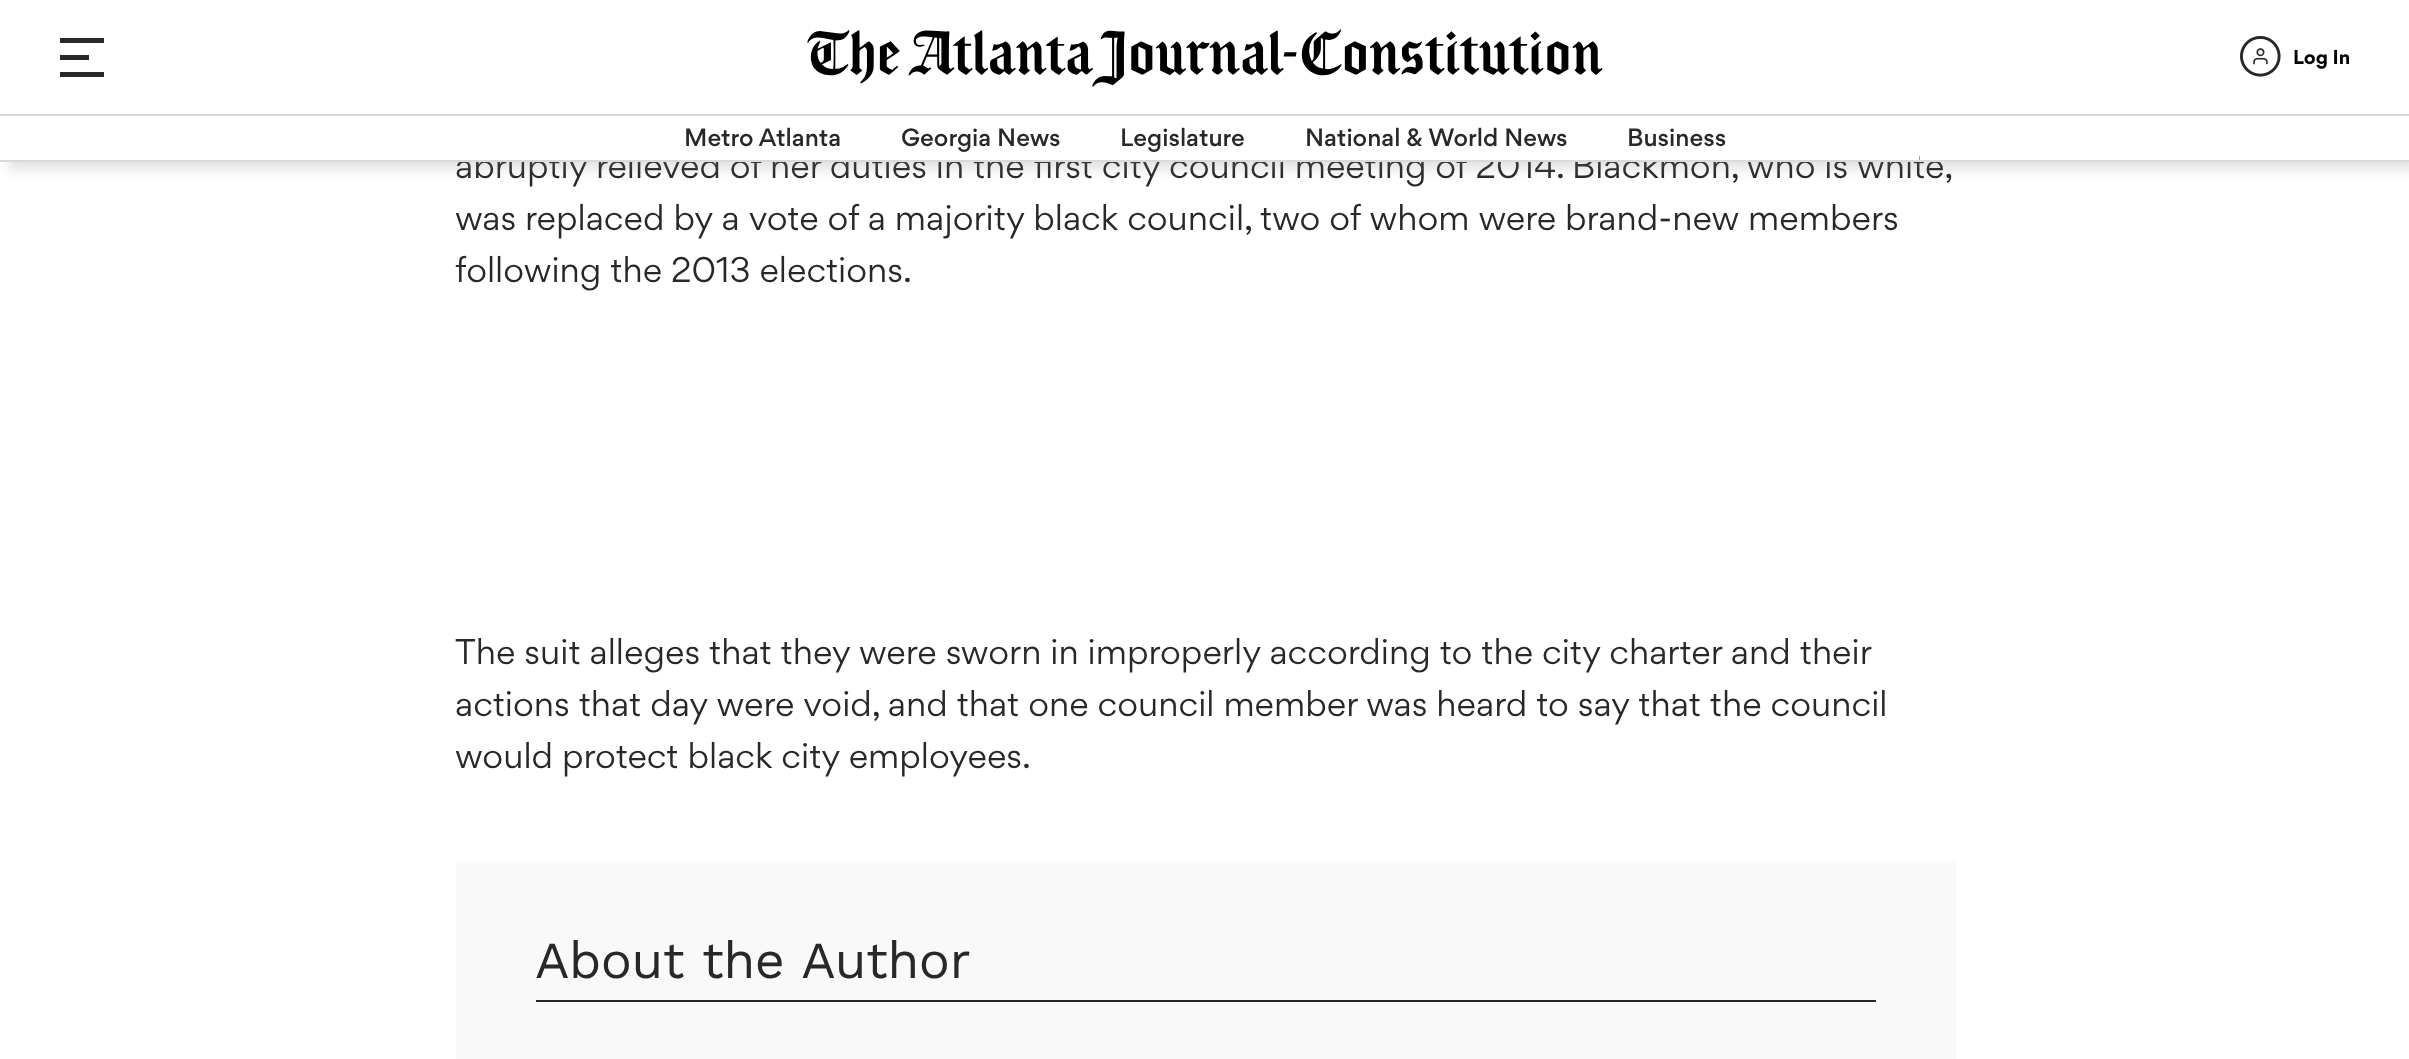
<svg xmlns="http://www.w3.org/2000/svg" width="2409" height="1059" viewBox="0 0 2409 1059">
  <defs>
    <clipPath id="clip1"><path d="M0 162h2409v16H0z"/></clipPath>
  </defs>
  <rect width="100%" height="100%" fill="#fff"/>
  <path d="M60 38H104V43H60ZM60 55H89V60H60ZM60 72H104V77H60Z" fill="#282828"/>
  <image x="807" y="29" width="796" height="58" href="img/1.png"/>
  <image x="2240" y="36" width="41" height="41" href="img/2.png"/>
  <path d="M456 862h1500v197H456z" fill="#f9f9f9"/>
  <path d="M536 1000h1340v2H536z" fill="#282828"/>
  <text x="2293" y="64" font-family="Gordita" font-size="18" font-weight="bold" fill="#000">Log In</text>
  <text x="455" y="178" word-spacing="-0.1" font-family="Gordita" font-size="32" fill="#282828">abruptly relieved of her duties in the first city council meeting of 2014. Blackmon, who is white,</text>
  <path d="M476 151h1443v9H476z" fill="#fff"/>
  <g clip-path="url(#clip1)">
    <path d="M8 122h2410v48H8z" fill="#85858538" filter="blur(6px)"/>
  </g>
  <g font-family="Gordita" font-size="22.4" font-weight="500" fill="#282828">
    <text x="1627" y="146">Business</text>
    <text x="1305" y="146">National &amp; World News</text>
    <text x="1120" y="146">Legislature</text>
    <text x="901" y="146">Georgia News</text>
    <text x="684" y="146">Metro Atlanta</text>
  </g>
  <path d="M0 160h2409v2H0z" fill="#dadada"/>
  <path d="M0 114h2409v2H0z" fill="#dadada"/>
  <g font-family="Gordita" font-size="32" fill="#282828">
    <text x="455" y="230">was replaced by a vote of a majority black council, two of whom were brand-new members</text>
    <text x="455" y="282">following the 2013 elections.</text>
    <text x="455" y="664">The suit alleges that they were sworn in improperly according to the city charter and their</text>
    <text x="455" y="716">actions that day were void, and that one council member was heard to say that the council</text>
    <text x="455" y="768">would protect black city employees.</text>
  </g>
  <text x="535" y="978" word-spacing="2" font-family="Work Sans" font-size="52" letter-spacing="-0.6" fill="#282828">About the Author</text>
</svg>
